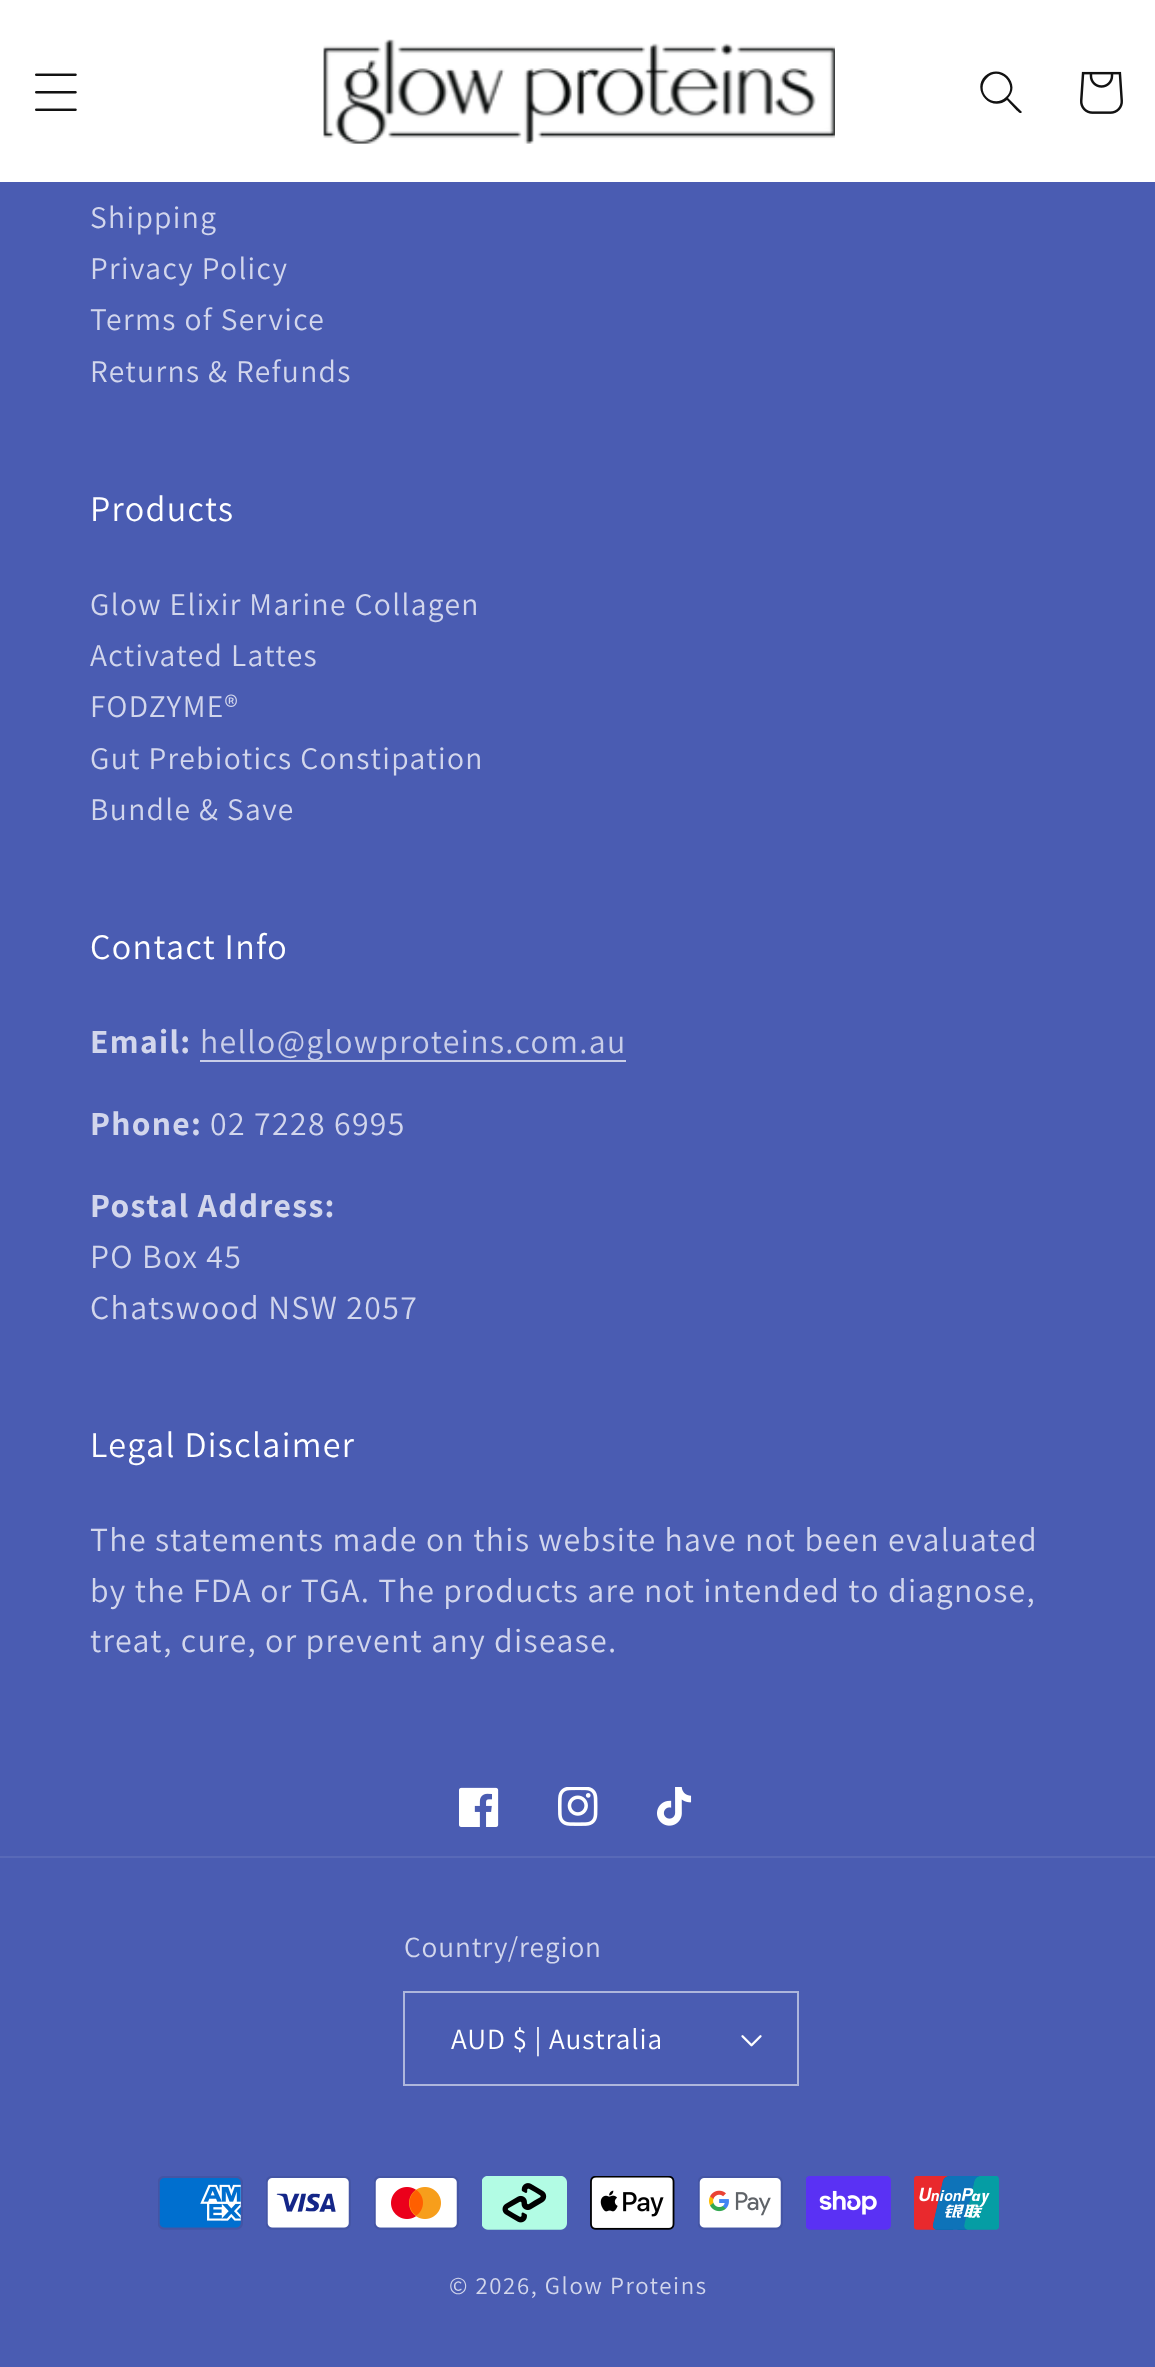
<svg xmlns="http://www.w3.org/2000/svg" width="1155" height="2367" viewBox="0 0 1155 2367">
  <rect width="100%" height="100%" fill="#4a5cb2"/>
  <path d="M0 0h1155v182H0z" fill="#fff"/>
  <image x="35" y="73" width="42" height="38" href="img/1.png"/>
  <image x="323" y="39" width="512" height="105" href="img/2.png"/>
  <path d="M1006 97C993 110 974 91 987 78C999 65 1019 85 1006 97ZM1007 100C991 113 971 90 985 76C1000 62 1022 83 1008 98L1022 112L1021 113C1019 114 1009 102 1007 100Z" fill="#121212" fill-rule="evenodd"/>
  <image x="1080" y="71" width="43" height="43" href="img/3.png"/>
  <path d="M200 1060h426v2H200z" fill="#c9cee8"/>
  <image x="459" y="1787" width="40" height="40" href="img/4.png"/>
  <image x="558" y="1787" width="40" height="39" href="img/5.png"/>
  <image x="657" y="1787" width="35" height="39" href="img/6.png"/>
  <path d="M0 1856h1155v2H0z" fill="#5869b8"/>
  <image x="741" y="2035" width="21" height="12" href="img/7.png"/>
  <path d="M404 1992h394v93H404z" fill="none" stroke="#aeb6dc" stroke-width="2"/>
  <image x="158" y="2176" width="85" height="54" href="img/8.png"/>
  <image x="266" y="2176" width="85" height="54" href="img/9.png"/>
  <image x="374" y="2176" width="85" height="54" href="img/10.png"/>
  <image x="482" y="2176" width="85" height="54" href="img/11.png"/>
  <image x="590" y="2176" width="85" height="54" href="img/12.png"/>
  <image x="698" y="2176" width="85" height="54" href="img/13.png"/>
  <image x="806" y="2176" width="85" height="54" href="img/14.png"/>
  <image x="914" y="2176" width="85" height="54" href="img/15.png"/>
  <g font-family="Assistant" font-size="31.5" letter-spacing="1.35" fill="#d2d6ec">
    <text x="90" y="228">Shipping</text>
    <text x="90" y="279">Privacy Policy</text>
    <text x="90" y="330">Terms of Service</text>
    <text x="90" y="382">Returns &amp; Refunds</text>
  </g>
  <text x="90" y="521" font-family="Assistant" font-size="36" letter-spacing="1.35" fill="#fff">Products</text>
  <g font-family="Assistant" font-size="31.5" letter-spacing="1.35" fill="#d2d6ec">
    <text x="90" y="615">Glow Elixir Marine Collagen</text>
    <text x="90" y="666">Activated Lattes</text>
    <text x="90" y="717">FODZYME®</text>
    <text x="90" y="769">Gut Prebiotics Constipation</text>
    <text x="90" y="820">Bundle &amp; Save</text>
  </g>
  <text x="90" y="959" font-family="Assistant" font-size="36" letter-spacing="1.35" fill="#fff">Contact Info</text>
  <text x="90" y="1053" font-family="Assistant" font-size="33.75" font-weight="bold" letter-spacing="1.35" fill="#d2d6ec">Email:</text>
  <text x="200" y="1053" font-family="Assistant" font-size="33.75" letter-spacing="1.35" fill="#c9cee8">hello@glowproteins.com.au</text>
  <text x="90" y="1135" font-family="Assistant" font-size="33.75" font-weight="bold" letter-spacing="1.35" fill="#d2d6ec">Phone:</text>
  <text x="210" y="1135" font-family="Assistant" font-size="33.75" letter-spacing="1.35" fill="#d2d6ec">02 7228 6995</text>
  <text x="90" y="1217" font-family="Assistant" font-size="33.75" font-weight="bold" letter-spacing="1.35" fill="#d2d6ec">Postal Address:</text>
  <g font-family="Assistant" font-size="33.75" letter-spacing="1.35" fill="#d2d6ec">
    <text x="90" y="1268">PO Box 45</text>
    <text x="90" y="1319">Chatswood NSW 2057</text>
  </g>
  <text x="90" y="1457" font-family="Assistant" font-size="36" letter-spacing="1.35" fill="#fff">Legal Disclaimer</text>
  <g font-family="Assistant" font-size="33.75" letter-spacing="1.35" fill="#d2d6ec">
    <text x="90" y="1551">The statements made on this website have not been evaluated</text>
    <text x="90" y="1602">by the FDA or TGA. The products are not intended to diagnose,</text>
    <text x="90" y="1652">treat, cure, or prevent any disease.</text>
  </g>
  <text x="404" y="1957" font-family="Assistant" font-size="29.25" letter-spacing="0.9" fill="#d2d6ec">Country/region</text>
  <text x="451" y="2049" font-family="Assistant" font-size="29.25" letter-spacing="0.9" fill="#fff">AUD $ | Australia</text>
  <text x="449" y="2294" font-family="Assistant" font-size="24.75" letter-spacing="1.6" fill="#d2d6ec">© 2026, Glow Proteins</text>
</svg>
